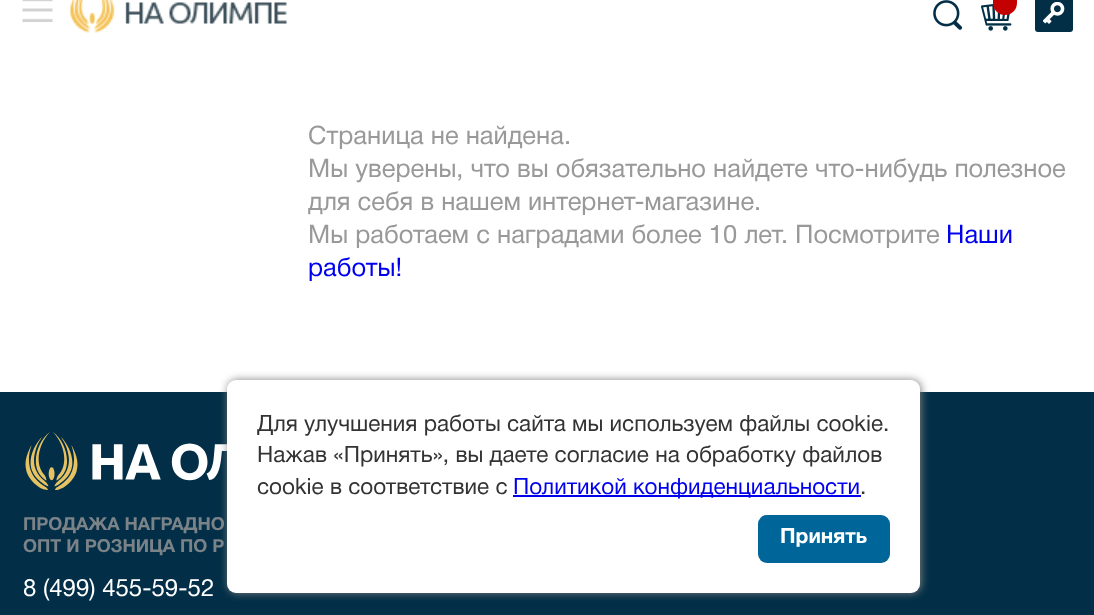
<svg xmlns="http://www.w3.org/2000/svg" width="1094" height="615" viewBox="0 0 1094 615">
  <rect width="100%" height="100%" fill="#fff"/>
  <image x="22" y="0" width="31" height="22" href="img/1.png"/>
  <image x="70" y="0" width="217" height="33" href="img/2.png"/>
  <image x="933" y="0" width="30" height="30" href="img/3.png"/>
  <image x="981" y="4" width="31" height="27" href="img/4.png"/>
  <rect x="993" y="-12" width="24" height="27" rx="12" fill="#c30101"/>
  <rect x="1035" y="-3" width="38" height="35" rx="3" fill="#022f46"/>
  <image x="1043" y="2" width="22" height="22" href="img/5.png"/>
  <path d="M0 392h1094v223H0z" fill="#022f47"/>
  <image x="25" y="432" width="202" height="58" href="img/6.png"/>
  <rect x="228" y="380" width="693" height="213" rx="9" fill="#808080" filter="blur(4px)"/>
  <rect x="227" y="380" width="693" height="213" rx="9" fill="#fff"/>
  <path d="M513 495h348v2H513z" fill="#00e"/>
  <rect x="758" y="515" width="132" height="48" rx="9" fill="#069"/>
  <g font-family="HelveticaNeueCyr" font-size="25.5" fill="#999">
    <text x="308" y="144">Страница не найдена.</text>
    <text x="308" y="177">Мы уверены, что вы обязательно найдете что-нибудь полезное</text>
    <text x="308" y="210">для себя в нашем интернет-магазине.</text>
    <text x="308" y="243">Мы работаем с наградами более 10 лет. Посмотрите</text>
  </g>
  <g font-family="HelveticaNeueCyr" font-size="25.5" fill="#00e">
    <text x="946" y="243">Наши</text>
    <text x="308" y="276">работы!</text>
  </g>
  <g font-family="HelveticaNeueCyr" font-size="18" font-weight="bold" fill="#7b8388">
    <text x="23" y="530">ПРОДАЖА НАГРАДНО</text>
    <text x="23" y="552">ОПТ И РОЗНИЦА ПО Р</text>
  </g>
  <text x="23" y="596" font-family="HelveticaNeueCyr" font-size="24" fill="#fff">8 (499) 455-59-52</text>
  <g font-family="HelveticaNeueCyr" font-size="22.5" fill="#333">
    <text x="257" y="431">Для улучшения работы сайта мы используем файлы cookie.</text>
    <text x="257" y="462">Нажав «Принять», вы даете согласие на обработку файлов</text>
    <text x="257" y="494">cookie в соответствие с</text>
  </g>
  <text x="513" y="494" font-family="HelveticaNeueCyr" font-size="22.5" fill="#00e">Политикой конфиденциальности</text>
  <text x="860" y="494" font-family="HelveticaNeueCyr" font-size="22.5" fill="#333">.</text>
  <text x="780" y="543" font-family="HelveticaNeueCyr" font-size="21" font-weight="bold" fill="#fff">Принять</text>
</svg>
